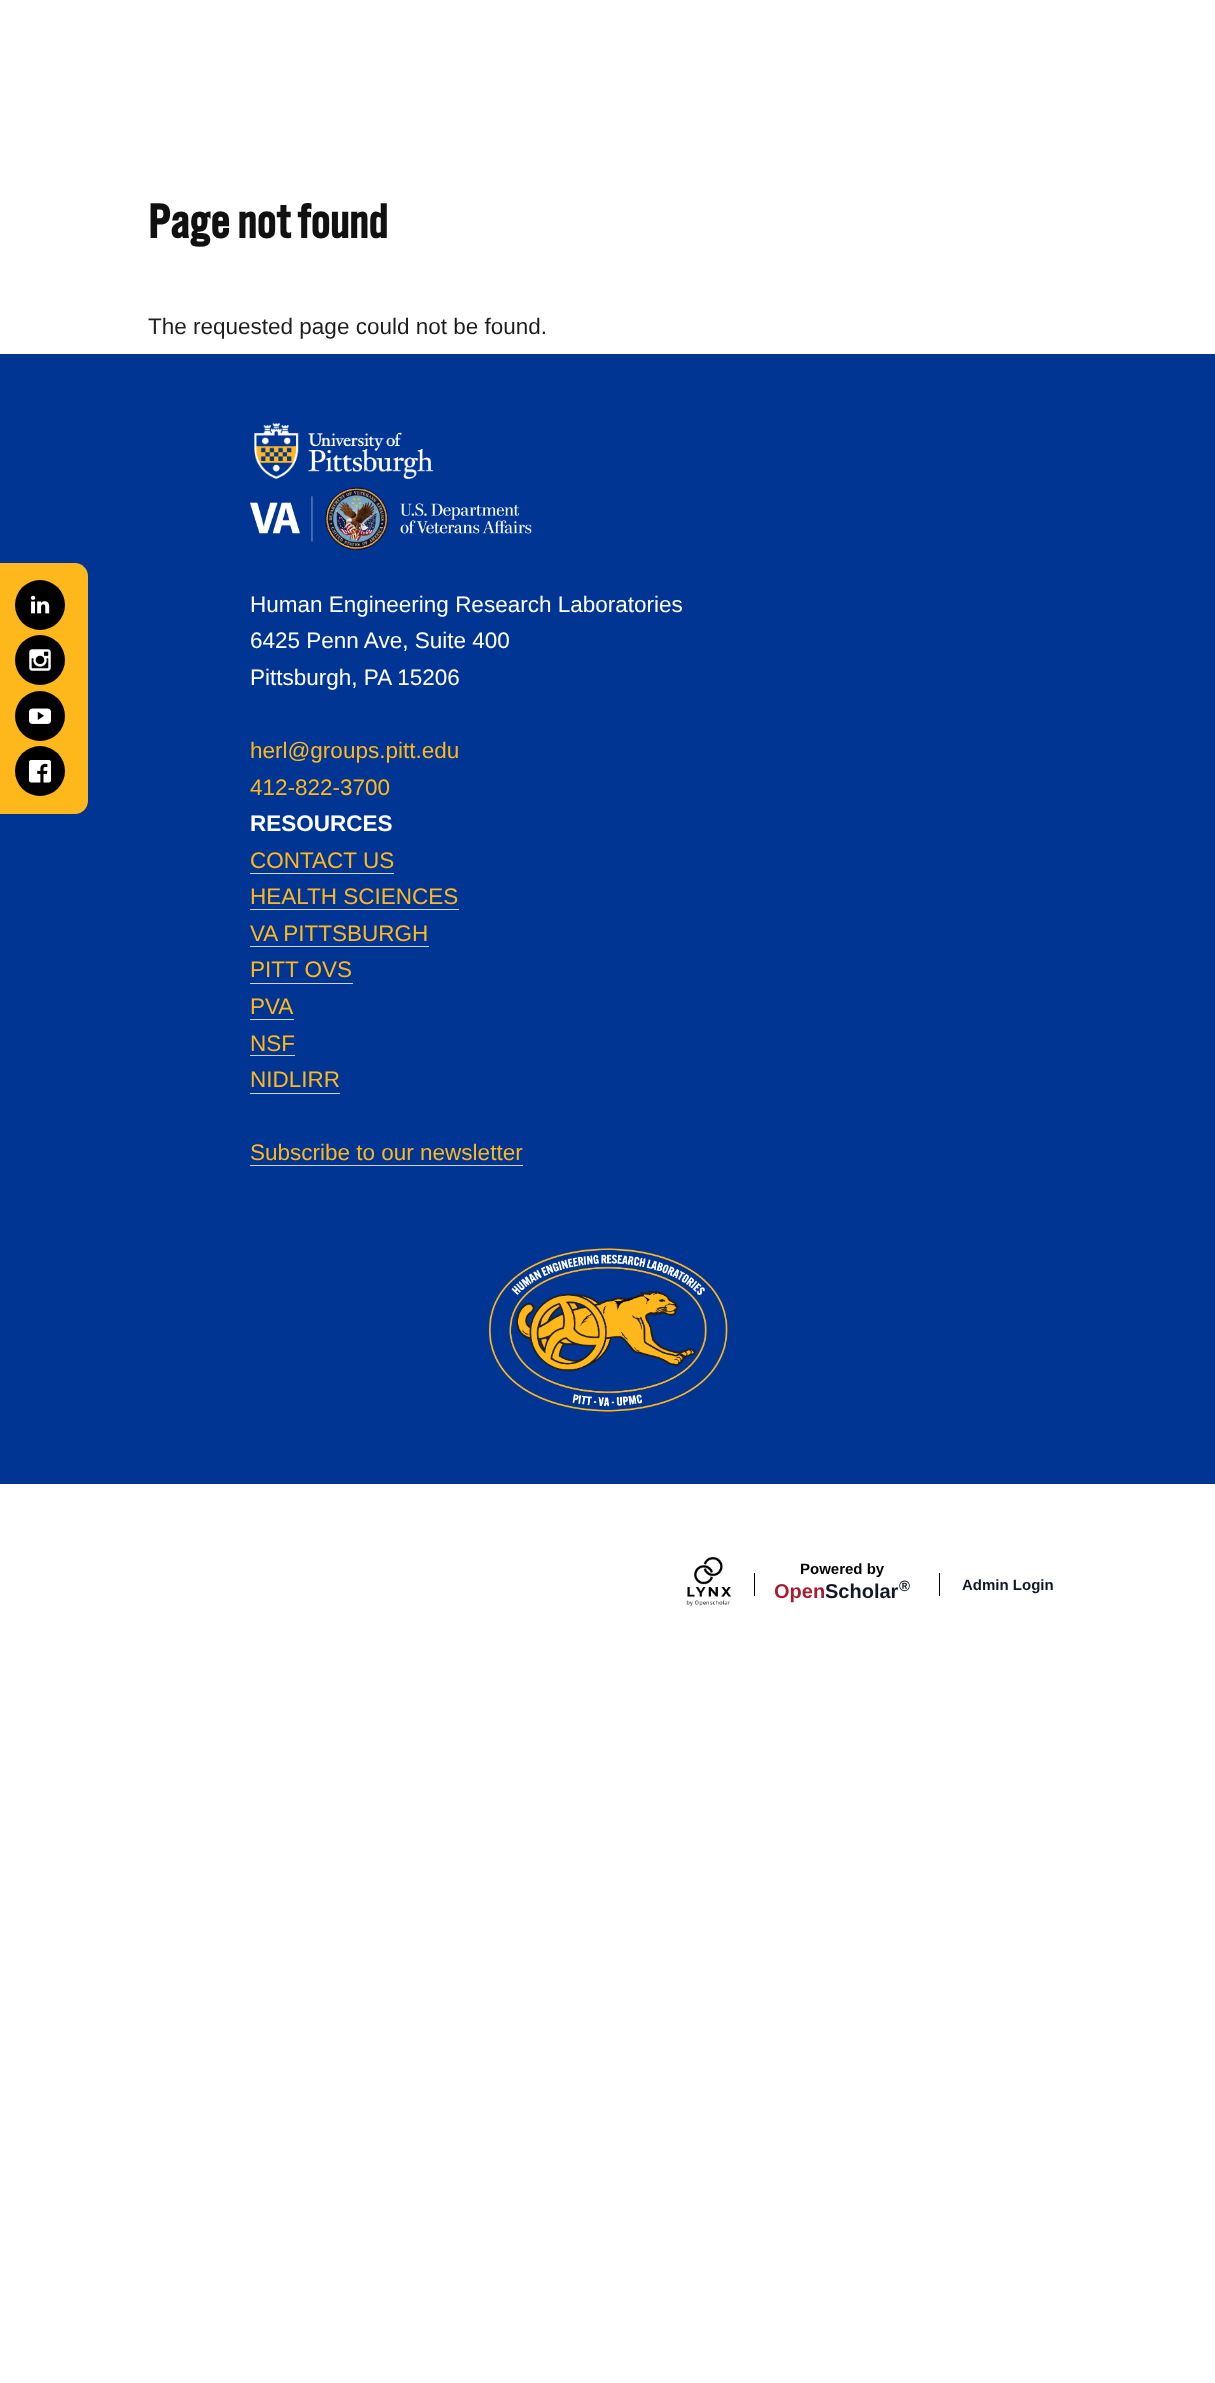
<svg xmlns="http://www.w3.org/2000/svg" width="1215" height="2383" viewBox="0 0 1215 2383">
  <rect width="100%" height="100%" fill="#fff"/>
  <path d="M0 354h1215v1130H0z" fill="#003594"/>
  <image x="254" y="422" width="180" height="58" href="img/1.png"/>
  <image x="250" y="487" width="282" height="63" href="img/2.png"/>
  <path d="M0 563H75C82 563 88 569 88 576V801C88 808 82 814 75 814H0Z" fill="#ffb81c"/>
  <circle cx="40" cy="605" r="25" fill="#000"/>
  <image x="30" y="595" width="20" height="19" href="img/3.png"/>
  <circle cx="40" cy="660" r="25" fill="#000"/>
  <image x="29" y="649" width="22" height="22" href="img/4.png"/>
  <circle cx="40" cy="716" r="25" fill="#000"/>
  <image x="29" y="708" width="22" height="16" href="img/5.png"/>
  <circle cx="40" cy="771" r="25" fill="#000"/>
  <image x="29" y="760" width="22" height="23" href="img/6.png"/>
  <path d="M250 873h144v1H250z" fill="#d1d5db"/>
  <path d="M250 909h209v1H250z" fill="#d1d5db"/>
  <path d="M250 946h179v1H250z" fill="#d1d5db"/>
  <path d="M250 983h103v1H250z" fill="#d1d5db"/>
  <path d="M250 1019h44v1H250z" fill="#d1d5db"/>
  <path d="M250 1055h45v1H250z" fill="#d1d5db"/>
  <path d="M250 1093h90v1H250z" fill="#d1d5db"/>
  <path d="M250 1165h273v1H250z" fill="#d1d5db"/>
  <image x="489" y="1248" width="239" height="164" href="img/7.png"/>
  <image x="686" y="1557" width="46" height="50" href="img/8.png"/>
  <path d="M754 1573h1v23H754z" fill="#000"/>
  <path d="M939 1573h1v23H939z" fill="#000"/>
  <text x="148" y="238" font-family="'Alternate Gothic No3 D'" font-size="50" font-weight="bold" fill="#111">Page not found</text>
  <text x="148" y="334" font-family="Liberation Sans" font-size="22.5" fill="#1e1e1e">The requested page could not be found.</text>
  <g font-family="Liberation Sans" font-size="22.5" fill="#fff">
    <text x="250" y="612">Human Engineering Research Laboratories</text>
    <text x="250" y="648">6425 Penn Ave, Suite 400</text>
    <text x="250" y="685">Pittsburgh, PA 15206</text>
  </g>
  <g font-family="Liberation Sans" font-size="22.5" fill="#ffb81c">
    <text x="250" y="758">herl@groups.pitt.edu</text>
    <text x="250" y="795">412-822-3700</text>
  </g>
  <text x="250" y="831" font-family="Liberation Sans" font-size="22.5" font-weight="bold" fill="#fff">RESOURCES</text>
  <g font-family="Liberation Sans" font-size="22.5" fill="#ffb81c">
    <text x="250" y="868">CONTACT US</text>
    <text x="250" y="904">HEALTH SCIENCES</text>
    <text x="250" y="941">VA PITTSBURGH</text>
    <text x="250" y="977">PITT OVS</text>
    <text x="250" y="1014">PVA</text>
    <text x="250" y="1051">NSF</text>
    <text x="250" y="1087">NIDLIRR</text>
    <text x="250" y="1160">Subscribe to our newsletter</text>
  </g>
  <text x="800" y="1574" font-family="Liberation Sans" font-size="15" font-weight="bold" fill="#000">Powered by</text>
  <text x="774" y="1598" font-family="Liberation Sans" font-size="20" font-weight="bold" fill="#a61e32">Open</text>
  <text x="825" y="1598" font-family="Liberation Sans" font-size="20" font-weight="bold" fill="#111827">Scholar</text>
  <g font-family="Liberation Sans" font-size="15" font-weight="bold" fill="#111827">
    <text x="899" y="1591">®</text>
    <text x="962" y="1590">Admin Login</text>
  </g>
</svg>
